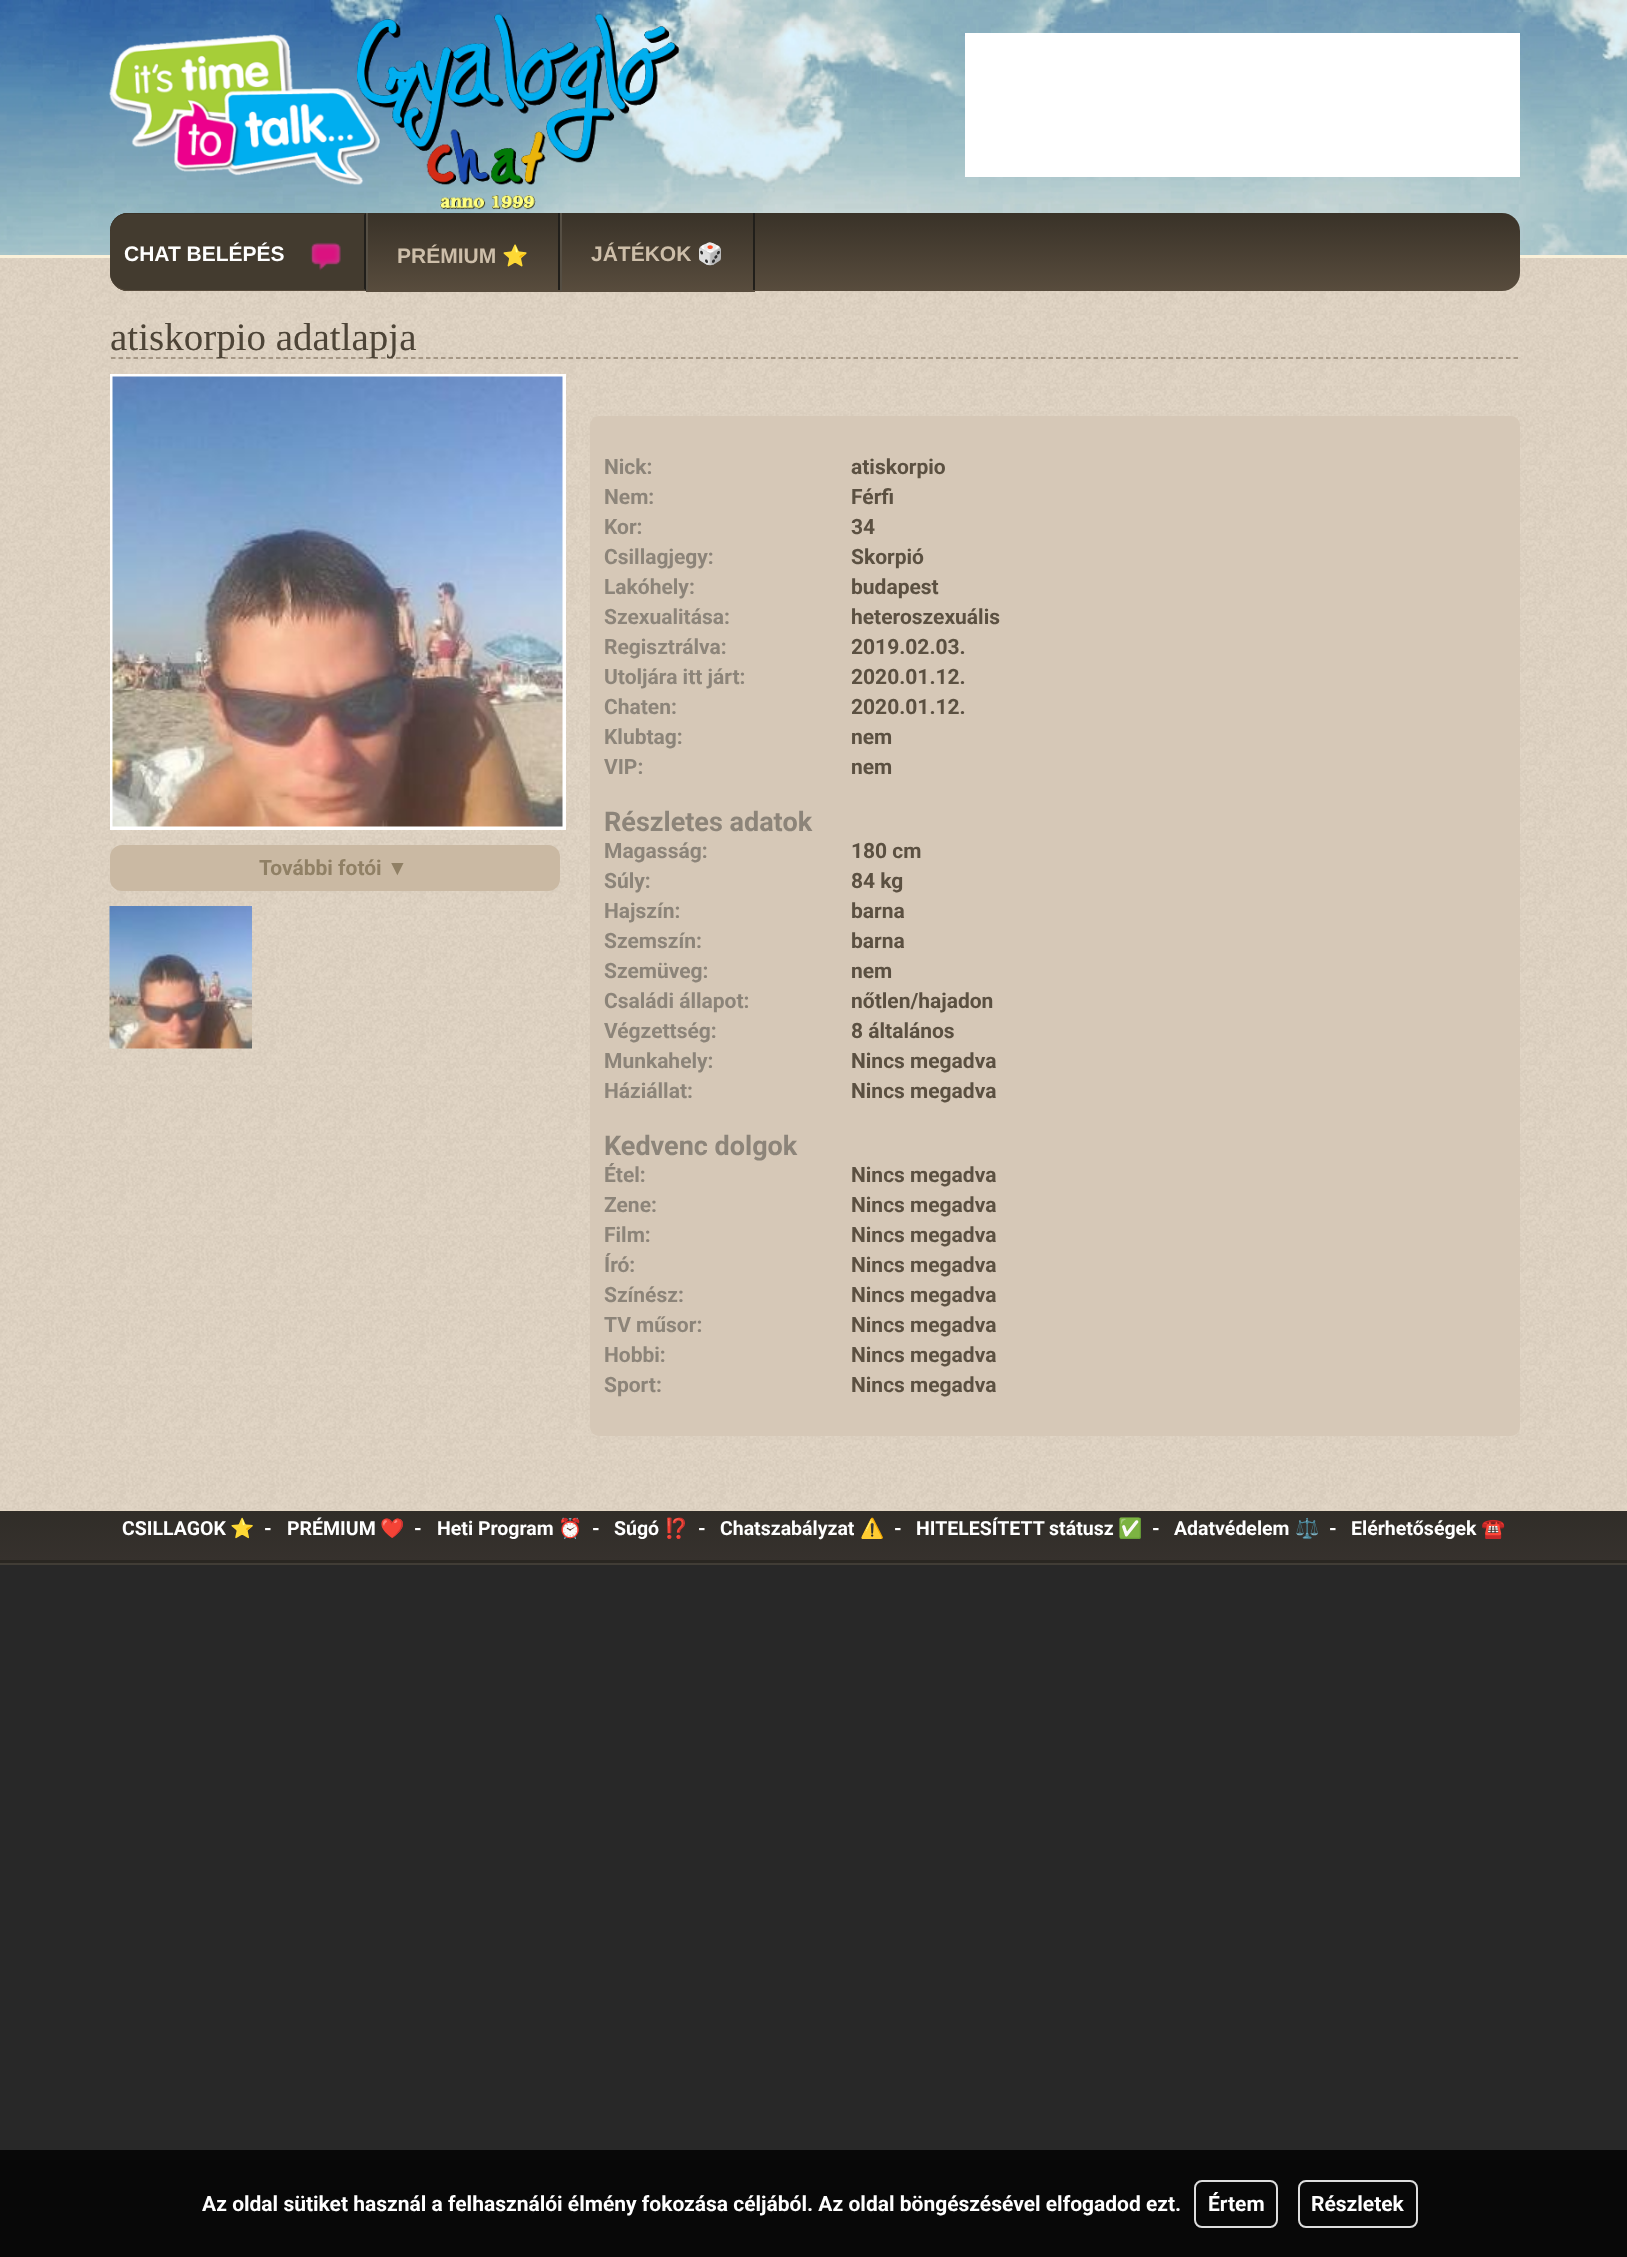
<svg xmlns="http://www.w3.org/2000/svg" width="1627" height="2257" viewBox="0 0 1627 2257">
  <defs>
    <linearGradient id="g1" gradientUnits="userSpaceOnUse" x1="815" y1="213" x2="815" y2="291"><stop offset="0" stop-color="#393228"/><stop offset="1" stop-color="#584c3d"/></linearGradient>
    <linearGradient id="g2" gradientUnits="userSpaceOnUse" x1="814" y1="1510" x2="814" y2="1560"><stop offset="0" stop-color="#302d28"/><stop offset="1" stop-color="#36312d"/></linearGradient>
  </defs>
  <rect width="100%" height="100%" fill="#282828"/>
  <image x="0" y="0" width="1627" height="255" href="img/1.png"/>
  <path d="M0 255h1627v3H0z" fill="#faf1da"/>
  <image x="109" y="13" width="571" height="197" href="img/2.png"/>
  <path d="M965 33h555v144H965z" fill="#fff"/>
  <path d="M0 258h1627v1253H0z" fill="#e4d7c6"/>
  <image x="0" y="258" width="1627" height="1253" href="img/3.png"/>
  <rect x="110" y="213" width="1410" height="78" rx="18" fill="url(#g1)"/>
  <path d="M128 213H366V291H128C118 291 110 283 110 273V231C110 221 118 213 128 213Z" fill="#433b2f"/>
  <image x="310" y="242" width="31" height="29" href="img/4.png"/>
  <path d="M128 213C118 213 110 221 110 231C110 222 118 214 128 214H364V215L366 213Z" fill="#393228"/>
  <path d="M366 213V291L364 289V215Z" fill="#211f1b"/>
  <path d="M366 291L364 289V290H128C118 290 110 282 110 273C110 283 118 291 128 291Z" fill="#584c3d"/>
  <path d="M558 213h2v78H558z" fill="#211f1b"/>
  <path d="M366 290h194v2H366z" fill="#584c3d"/>
  <path d="M366 213h2v78H366z" fill="#564f44"/>
  <path d="M753 213h2v78H753z" fill="#211f1b"/>
  <path d="M560 290h195v2H560z" fill="#584c3d"/>
  <path d="M560 213h2v78H560z" fill="#564f44"/>
  <path d="M111 358H1518" fill="none" stroke="#928472" stroke-width="1.5" stroke-dasharray="4.5 3"/>
  <path d="M110 374h456v456H110z" fill="#fff"/>
  <image x="112" y="376" width="451" height="451" href="img/5.png"/>
  <rect x="110" y="845" width="450" height="46" rx="12" fill="#cab9a3"/>
  <image x="109" y="906" width="143" height="143" href="img/6.png"/>
  <rect x="590" y="416" width="930" height="1020" rx="9" fill="#d6c8b7"/>
  <path d="M0 1511h1627v49H0z" fill="url(#g2)"/>
  <path d="M0 1560h1627v3H0z" fill="#2a2722"/>
  <path d="M0 1563h1627v2H0z" fill="#413d36"/>
  <path d="M0 2150h1627v107H0z" fill="#080808"/>
  <rect x="1195" y="2181" width="82" height="46" rx="7" fill="none" stroke="#dedede" stroke-width="2"/>
  <rect x="1299" y="2181" width="118" height="46" rx="7" fill="none" stroke="#dedede" stroke-width="2"/>
  <text x="124" y="261" font-family="Liberation Sans" font-size="21" font-weight="bold" fill="#fff">CHAT BELÉPÉS</text>
  <text x="397" y="263" font-family="Liberation Sans" font-size="21" font-weight="bold" fill="#cdbea9">PRÉMIUM</text>
  <text x="502" y="263" font-family="Noto Color Emoji" font-size="21" font-weight="bold" fill="#cdbea9">⭐</text>
  <text x="591" y="261" font-family="Liberation Sans" font-size="21" font-weight="bold" fill="#cdbea9">JÁTÉKOK</text>
  <text x="697" y="261" font-family="Noto Color Emoji" font-size="21" font-weight="bold" fill="#cdbea9">🎲</text>
  <text x="110" y="350" font-family="Liberation Serif" font-size="39" fill="#4d4437">atiskorpio adatlapja</text>
  <text x="259" y="875" font-family="Roboto" font-size="21" font-weight="bold" fill="#908065">További fotói</text>
  <text x="387" y="875" font-family="Liberation Sans" font-size="21" font-weight="bold" fill="#908065">▼</text>
  <text x="604" y="474" font-family="Roboto" font-size="21" font-weight="bold" fill="#8c8479">Nick:</text>
  <text x="851" y="474" font-family="Roboto" font-size="21" font-weight="bold" fill="#5b5041">atiskorpio</text>
  <text x="604" y="504" font-family="Roboto" font-size="21" font-weight="bold" fill="#8c8479">Nem:</text>
  <text x="851" y="504" font-family="Roboto" font-size="21" font-weight="bold" fill="#5b5041">Férfi</text>
  <text x="604" y="534" font-family="Roboto" font-size="21" font-weight="bold" fill="#8c8479">Kor:</text>
  <text x="851" y="534" font-family="Roboto" font-size="21" font-weight="bold" fill="#5b5041">34</text>
  <text x="604" y="564" font-family="Roboto" font-size="21" font-weight="bold" fill="#8c8479">Csillagjegy:</text>
  <text x="851" y="564" font-family="Roboto" font-size="21" font-weight="bold" fill="#5b5041">Skorpió</text>
  <text x="604" y="594" font-family="Roboto" font-size="21" font-weight="bold" fill="#8c8479">Lakóhely:</text>
  <text x="851" y="594" font-family="Roboto" font-size="21" font-weight="bold" fill="#5b5041">budapest</text>
  <text x="604" y="624" font-family="Roboto" font-size="21" font-weight="bold" fill="#8c8479">Szexualitása:</text>
  <text x="851" y="624" font-family="Roboto" font-size="21" font-weight="bold" fill="#5b5041">heteroszexuális</text>
  <text x="604" y="654" font-family="Roboto" font-size="21" font-weight="bold" fill="#8c8479">Regisztrálva:</text>
  <text x="851" y="654" font-family="Roboto" font-size="21" font-weight="bold" fill="#5b5041">2019.02.03.</text>
  <text x="604" y="684" font-family="Roboto" font-size="21" font-weight="bold" fill="#8c8479">Utoljára itt járt:</text>
  <text x="851" y="684" font-family="Roboto" font-size="21" font-weight="bold" fill="#5b5041">2020.01.12.</text>
  <text x="604" y="714" font-family="Roboto" font-size="21" font-weight="bold" fill="#8c8479">Chaten:</text>
  <text x="851" y="714" font-family="Roboto" font-size="21" font-weight="bold" fill="#5b5041">2020.01.12.</text>
  <text x="604" y="744" font-family="Roboto" font-size="21" font-weight="bold" fill="#8c8479">Klubtag:</text>
  <text x="851" y="744" font-family="Roboto" font-size="21" font-weight="bold" fill="#5b5041">nem</text>
  <text x="604" y="774" font-family="Roboto" font-size="21" font-weight="bold" fill="#8c8479">VIP:</text>
  <text x="851" y="774" font-family="Roboto" font-size="21" font-weight="bold" fill="#5b5041">nem</text>
  <text x="604" y="831" font-family="Roboto" font-size="27" font-weight="bold" fill="#8c8479">Részletes adatok</text>
  <text x="604" y="858" font-family="Roboto" font-size="21" font-weight="bold" fill="#8c8479">Magasság:</text>
  <text x="851" y="858" font-family="Roboto" font-size="21" font-weight="bold" fill="#5b5041">180 cm</text>
  <text x="604" y="888" font-family="Roboto" font-size="21" font-weight="bold" fill="#8c8479">Súly:</text>
  <text x="851" y="888" font-family="Roboto" font-size="21" font-weight="bold" fill="#5b5041">84 kg</text>
  <text x="604" y="918" font-family="Roboto" font-size="21" font-weight="bold" fill="#8c8479">Hajszín:</text>
  <text x="851" y="918" font-family="Roboto" font-size="21" font-weight="bold" fill="#5b5041">barna</text>
  <text x="604" y="948" font-family="Roboto" font-size="21" font-weight="bold" fill="#8c8479">Szemszín:</text>
  <text x="851" y="948" font-family="Roboto" font-size="21" font-weight="bold" fill="#5b5041">barna</text>
  <text x="604" y="978" font-family="Roboto" font-size="21" font-weight="bold" fill="#8c8479">Szemüveg:</text>
  <text x="851" y="978" font-family="Roboto" font-size="21" font-weight="bold" fill="#5b5041">nem</text>
  <text x="604" y="1008" font-family="Roboto" font-size="21" font-weight="bold" fill="#8c8479">Családi állapot:</text>
  <text x="851" y="1008" font-family="Roboto" font-size="21" font-weight="bold" fill="#5b5041">nőtlen/hajadon</text>
  <text x="604" y="1038" font-family="Roboto" font-size="21" font-weight="bold" fill="#8c8479">Végzettség:</text>
  <text x="851" y="1038" font-family="Roboto" font-size="21" font-weight="bold" fill="#5b5041">8 általános</text>
  <text x="604" y="1068" font-family="Roboto" font-size="21" font-weight="bold" fill="#8c8479">Munkahely:</text>
  <text x="851" y="1068" font-family="Roboto" font-size="21" font-weight="bold" fill="#5b5041">Nincs megadva</text>
  <text x="604" y="1098" font-family="Roboto" font-size="21" font-weight="bold" fill="#8c8479">Háziállat:</text>
  <text x="851" y="1098" font-family="Roboto" font-size="21" font-weight="bold" fill="#5b5041">Nincs megadva</text>
  <text x="604" y="1155" font-family="Roboto" font-size="27" font-weight="bold" fill="#8c8479">Kedvenc dolgok</text>
  <text x="604" y="1182" font-family="Roboto" font-size="21" font-weight="bold" fill="#8c8479">Étel:</text>
  <text x="851" y="1182" font-family="Roboto" font-size="21" font-weight="bold" fill="#5b5041">Nincs megadva</text>
  <text x="604" y="1212" font-family="Roboto" font-size="21" font-weight="bold" fill="#8c8479">Zene:</text>
  <text x="851" y="1212" font-family="Roboto" font-size="21" font-weight="bold" fill="#5b5041">Nincs megadva</text>
  <text x="604" y="1242" font-family="Roboto" font-size="21" font-weight="bold" fill="#8c8479">Film:</text>
  <text x="851" y="1242" font-family="Roboto" font-size="21" font-weight="bold" fill="#5b5041">Nincs megadva</text>
  <text x="604" y="1272" font-family="Roboto" font-size="21" font-weight="bold" fill="#8c8479">Író:</text>
  <text x="851" y="1272" font-family="Roboto" font-size="21" font-weight="bold" fill="#5b5041">Nincs megadva</text>
  <text x="604" y="1302" font-family="Roboto" font-size="21" font-weight="bold" fill="#8c8479">Színész:</text>
  <text x="851" y="1302" font-family="Roboto" font-size="21" font-weight="bold" fill="#5b5041">Nincs megadva</text>
  <text x="604" y="1332" font-family="Roboto" font-size="21" font-weight="bold" fill="#8c8479">TV műsor:</text>
  <text x="851" y="1332" font-family="Roboto" font-size="21" font-weight="bold" fill="#5b5041">Nincs megadva</text>
  <text x="604" y="1362" font-family="Roboto" font-size="21" font-weight="bold" fill="#8c8479">Hobbi:</text>
  <text x="851" y="1362" font-family="Roboto" font-size="21" font-weight="bold" fill="#5b5041">Nincs megadva</text>
  <text x="604" y="1392" font-family="Roboto" font-size="21" font-weight="bold" fill="#8c8479">Sport:</text>
  <text x="851" y="1392" font-family="Roboto" font-size="21" font-weight="bold" fill="#5b5041">Nincs megadva</text>
  <text x="122" y="1535" font-family="Roboto" font-size="19.5" font-weight="bold" fill="#fff">CSILLAGOK</text>
  <text x="230" y="1535" font-family="Noto Color Emoji" font-size="19.5" font-weight="bold" fill="#fff">⭐</text>
  <g font-family="Roboto" font-size="19.5" font-weight="bold" fill="#fff">
    <text x="264" y="1535">-</text>
    <text x="287" y="1535">PRÉMIUM</text>
  </g>
  <text x="380" y="1535" font-family="Noto Color Emoji" font-size="19.5" font-weight="bold" fill="#fff">❤️‍</text>
  <g font-family="Roboto" font-size="19.5" font-weight="bold" fill="#fff">
    <text x="414" y="1535">-</text>
    <text x="437" y="1535">Heti Program</text>
  </g>
  <text x="558" y="1535" font-family="Noto Color Emoji" font-size="19.5" font-weight="bold" fill="#fff">⏰</text>
  <g font-family="Roboto" font-size="19.5" font-weight="bold" fill="#fff">
    <text x="592" y="1535">-</text>
    <text x="614" y="1535">Súgó</text>
  </g>
  <text x="664" y="1535" font-family="Noto Color Emoji" font-size="19.5" font-weight="bold" fill="#fff">⁉️</text>
  <g font-family="Roboto" font-size="19.5" font-weight="bold" fill="#fff">
    <text x="698" y="1535">-</text>
    <text x="720" y="1535">Chatszabályzat</text>
  </g>
  <text x="860" y="1535" font-family="Noto Color Emoji" font-size="19.5" font-weight="bold" fill="#fff">⚠️</text>
  <g font-family="Roboto" font-size="19.5" font-weight="bold" fill="#fff">
    <text x="894" y="1535">-</text>
    <text x="916" y="1535">HITELESÍTETT státusz</text>
  </g>
  <text x="1118" y="1535" font-family="Noto Color Emoji" font-size="19.5" font-weight="bold" fill="#fff">✅</text>
  <g font-family="Roboto" font-size="19.5" font-weight="bold" fill="#fff">
    <text x="1152" y="1535">-</text>
    <text x="1174" y="1535">Adatvédelem</text>
  </g>
  <text x="1295" y="1535" font-family="Noto Color Emoji" font-size="19.5" font-weight="bold" fill="#fff">⚖️</text>
  <g font-family="Roboto" font-size="19.5" font-weight="bold" fill="#fff">
    <text x="1329" y="1535">-</text>
    <text x="1351" y="1535">Elérhetőségek</text>
  </g>
  <text x="1481" y="1535" font-family="Noto Color Emoji" font-size="19.5" font-weight="bold" fill="#fff">☎️</text>
  <g font-family="Roboto" font-size="21" font-weight="bold" fill="#fff">
    <text x="202" y="2211">Az oldal sütiket használ a felhasználói élmény fokozása céljából. Az oldal böngészésével elfogadod ezt.</text>
    <text x="1208" y="2211">Értem</text>
    <text x="1311" y="2211">Részletek</text>
  </g>
</svg>
